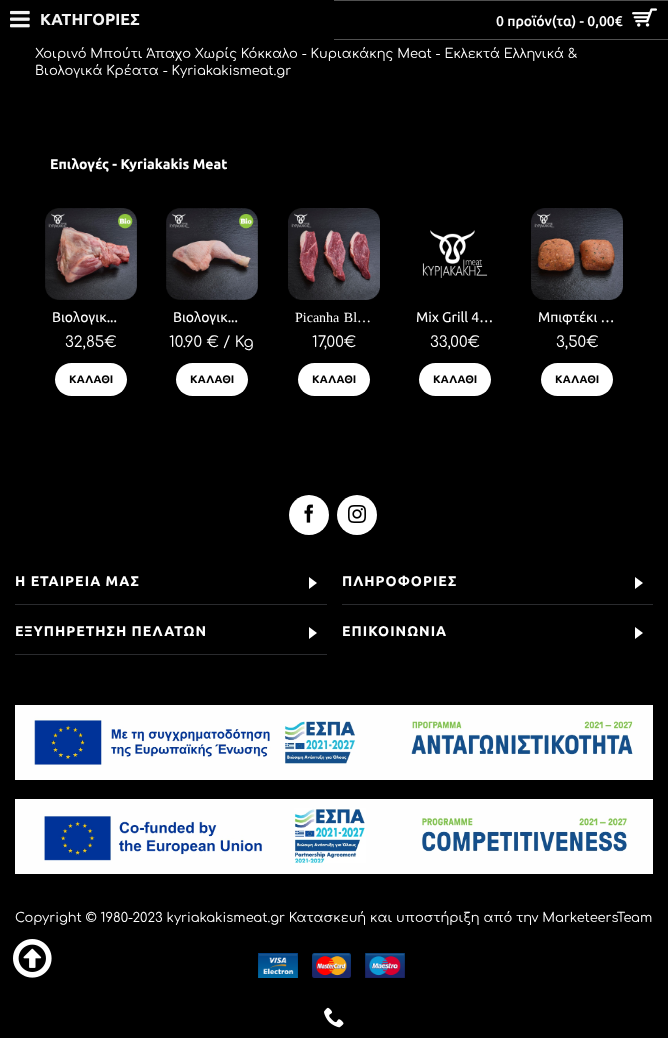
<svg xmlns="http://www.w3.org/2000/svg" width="668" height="1038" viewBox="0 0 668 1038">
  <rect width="100%" height="100%" fill="#000"/>
  <path d="M0 3h668v40H0z" fill="#0000004d" filter="blur(10px)"/>
  <image x="10" y="10" width="20" height="18" href="img/1.png"/>
  <path d="M334 0h334v1H334z" fill="#505050"/>
  <path d="M334 39h334v1H334z" fill="#505050"/>
  <image x="632" y="8" width="25" height="19" href="img/2.png"/>
  <image x="324" y="1007" width="20" height="21" href="img/3.png"/>
  <image x="45" y="208" width="92" height="92" href="img/4.png"/>
  <rect x="55" y="363" width="72" height="33" rx="16.5" fill="#fff"/>
  <image x="166" y="208" width="92" height="92" href="img/5.png"/>
  <rect x="176" y="363" width="72" height="33" rx="16.5" fill="#fff"/>
  <image x="288" y="208" width="92" height="92" href="img/6.png"/>
  <rect x="298" y="363" width="72" height="33" rx="16.5" fill="#fff"/>
  <image x="422" y="230" width="66" height="48" href="img/7.png"/>
  <rect x="419" y="363" width="72" height="33" rx="16.5" fill="#fff"/>
  <image x="531" y="208" width="92" height="92" href="img/8.png"/>
  <rect x="541" y="363" width="72" height="33" rx="16.5" fill="#fff"/>
  <circle cx="309" cy="515" r="20" fill="#fff"/>
  <image x="304" y="504" width="9" height="19" href="img/9.png"/>
  <circle cx="357" cy="515" r="20" fill="#fff"/>
  <image x="348" y="505" width="18" height="18" href="img/10.png"/>
  <path d="M15 604h312v1H15z" fill="#2a2b2e"/>
  <path d="M309 577V589L317 583Z" fill="#fff"/>
  <path d="M342 604h311v1H342z" fill="#2a2b2e"/>
  <path d="M635 577V589L643 583Z" fill="#fff"/>
  <path d="M15 654h312v1H15z" fill="#2a2b2e"/>
  <path d="M309 627V639L317 633Z" fill="#fff"/>
  <path d="M635 627V639L643 633Z" fill="#fff"/>
  <image x="15" y="705" width="638" height="75" href="img/11.png"/>
  <image x="15" y="799" width="638" height="75" href="img/12.png"/>
  <image x="258" y="953" width="40" height="25" href="img/13.png"/>
  <image x="312" y="953" width="39" height="25" href="img/14.png"/>
  <image x="365" y="953" width="40" height="25" href="img/15.png"/>
  <image x="13" y="939" width="39" height="39" href="img/16.png"/>
  <text x="40" y="25" font-family="Ubuntu" font-size="16" font-weight="bold" fill="#f4f4f4">ΚΑΤΗΓΟΡΙΕΣ</text>
  <text x="496" y="26" font-family="Ubuntu" font-size="14" font-weight="500" fill="#fff">0 προϊόν(τα) - 0,00€</text>
  <g font-family="Comfortaa" font-size="13" fill="#fff">
    <text x="35" y="58">Χοιρινό Μπούτι Άπαχο Χωρίς Κόκκαλο - Κυριακάκης Meat - Εκλεκτά Ελληνικά &amp;</text>
    <text x="35" y="75">Βιολογικά Κρέατα - Kyriakakismeat.gr</text>
  </g>
  <text x="50" y="169" font-family="Ubuntu" font-size="14" font-weight="bold" fill="#fff">Επιλογές - Kyriakakis Meat</text>
  <text x="52" y="322" font-family="Ubuntu" font-size="14" fill="#fff">Βιολογικ...</text>
  <text x="65" y="347" font-family="Comfortaa" font-size="15" fill="#fff">32,85€</text>
  <text x="69" y="383" font-family="Ubuntu" font-size="11" font-weight="bold" fill="#000">ΚΑΛΑΘΙ</text>
  <text x="173" y="322" font-family="Ubuntu" font-size="14" fill="#fff">Βιολογικ...</text>
  <text x="169" y="347" font-family="Comfortaa" font-size="15" fill="#fff">10.90 € / Kg</text>
  <text x="190" y="383" font-family="Ubuntu" font-size="11" font-weight="bold" fill="#000">ΚΑΛΑΘΙ</text>
  <text x="295" y="322" word-spacing="1" font-family="Liberation Serif" font-size="14" fill="#fff">Picanha Bl…</text>
  <text x="312" y="347" font-family="Comfortaa" font-size="15" fill="#fff">17,00€</text>
  <text x="312" y="383" font-family="Ubuntu" font-size="11" font-weight="bold" fill="#000">ΚΑΛΑΘΙ</text>
  <text x="416" y="322" font-family="Ubuntu" font-size="14" fill="#fff">Mix Grill 4…</text>
  <text x="430" y="347" font-family="Comfortaa" font-size="15" fill="#fff">33,00€</text>
  <text x="433" y="383" font-family="Ubuntu" font-size="11" font-weight="bold" fill="#000">ΚΑΛΑΘΙ</text>
  <text x="538" y="322" font-family="Ubuntu" font-size="14" fill="#fff">Μπιφτέκι …</text>
  <text x="556" y="347" font-family="Comfortaa" font-size="15" fill="#fff">3,50€</text>
  <text x="555" y="383" font-family="Ubuntu" font-size="11" font-weight="bold" fill="#000">ΚΑΛΑΘΙ</text>
  <g font-family="Ubuntu" font-size="14" font-weight="bold" letter-spacing="1" fill="#fff">
    <text x="15" y="586">Η ΕΤΑΙΡΕΙΑ ΜΑΣ</text>
    <text x="342" y="586">ΠΛΗΡΟΦΟΡΙΕΣ</text>
    <text x="15" y="636">ΕΞΥΠΗΡΕΤΗΣΗ ΠΕΛΑΤΩΝ</text>
    <text x="342" y="636">ΕΠΙΚΟΙΝΩΝΙΑ</text>
  </g>
  <text x="15" y="922" font-family="Comfortaa" font-size="13" fill="#fff">Copyright © 1980-2023 kyriakakismeat.gr Κατασκευή και υποστήριξη από την MarketeersTeam</text>
</svg>
